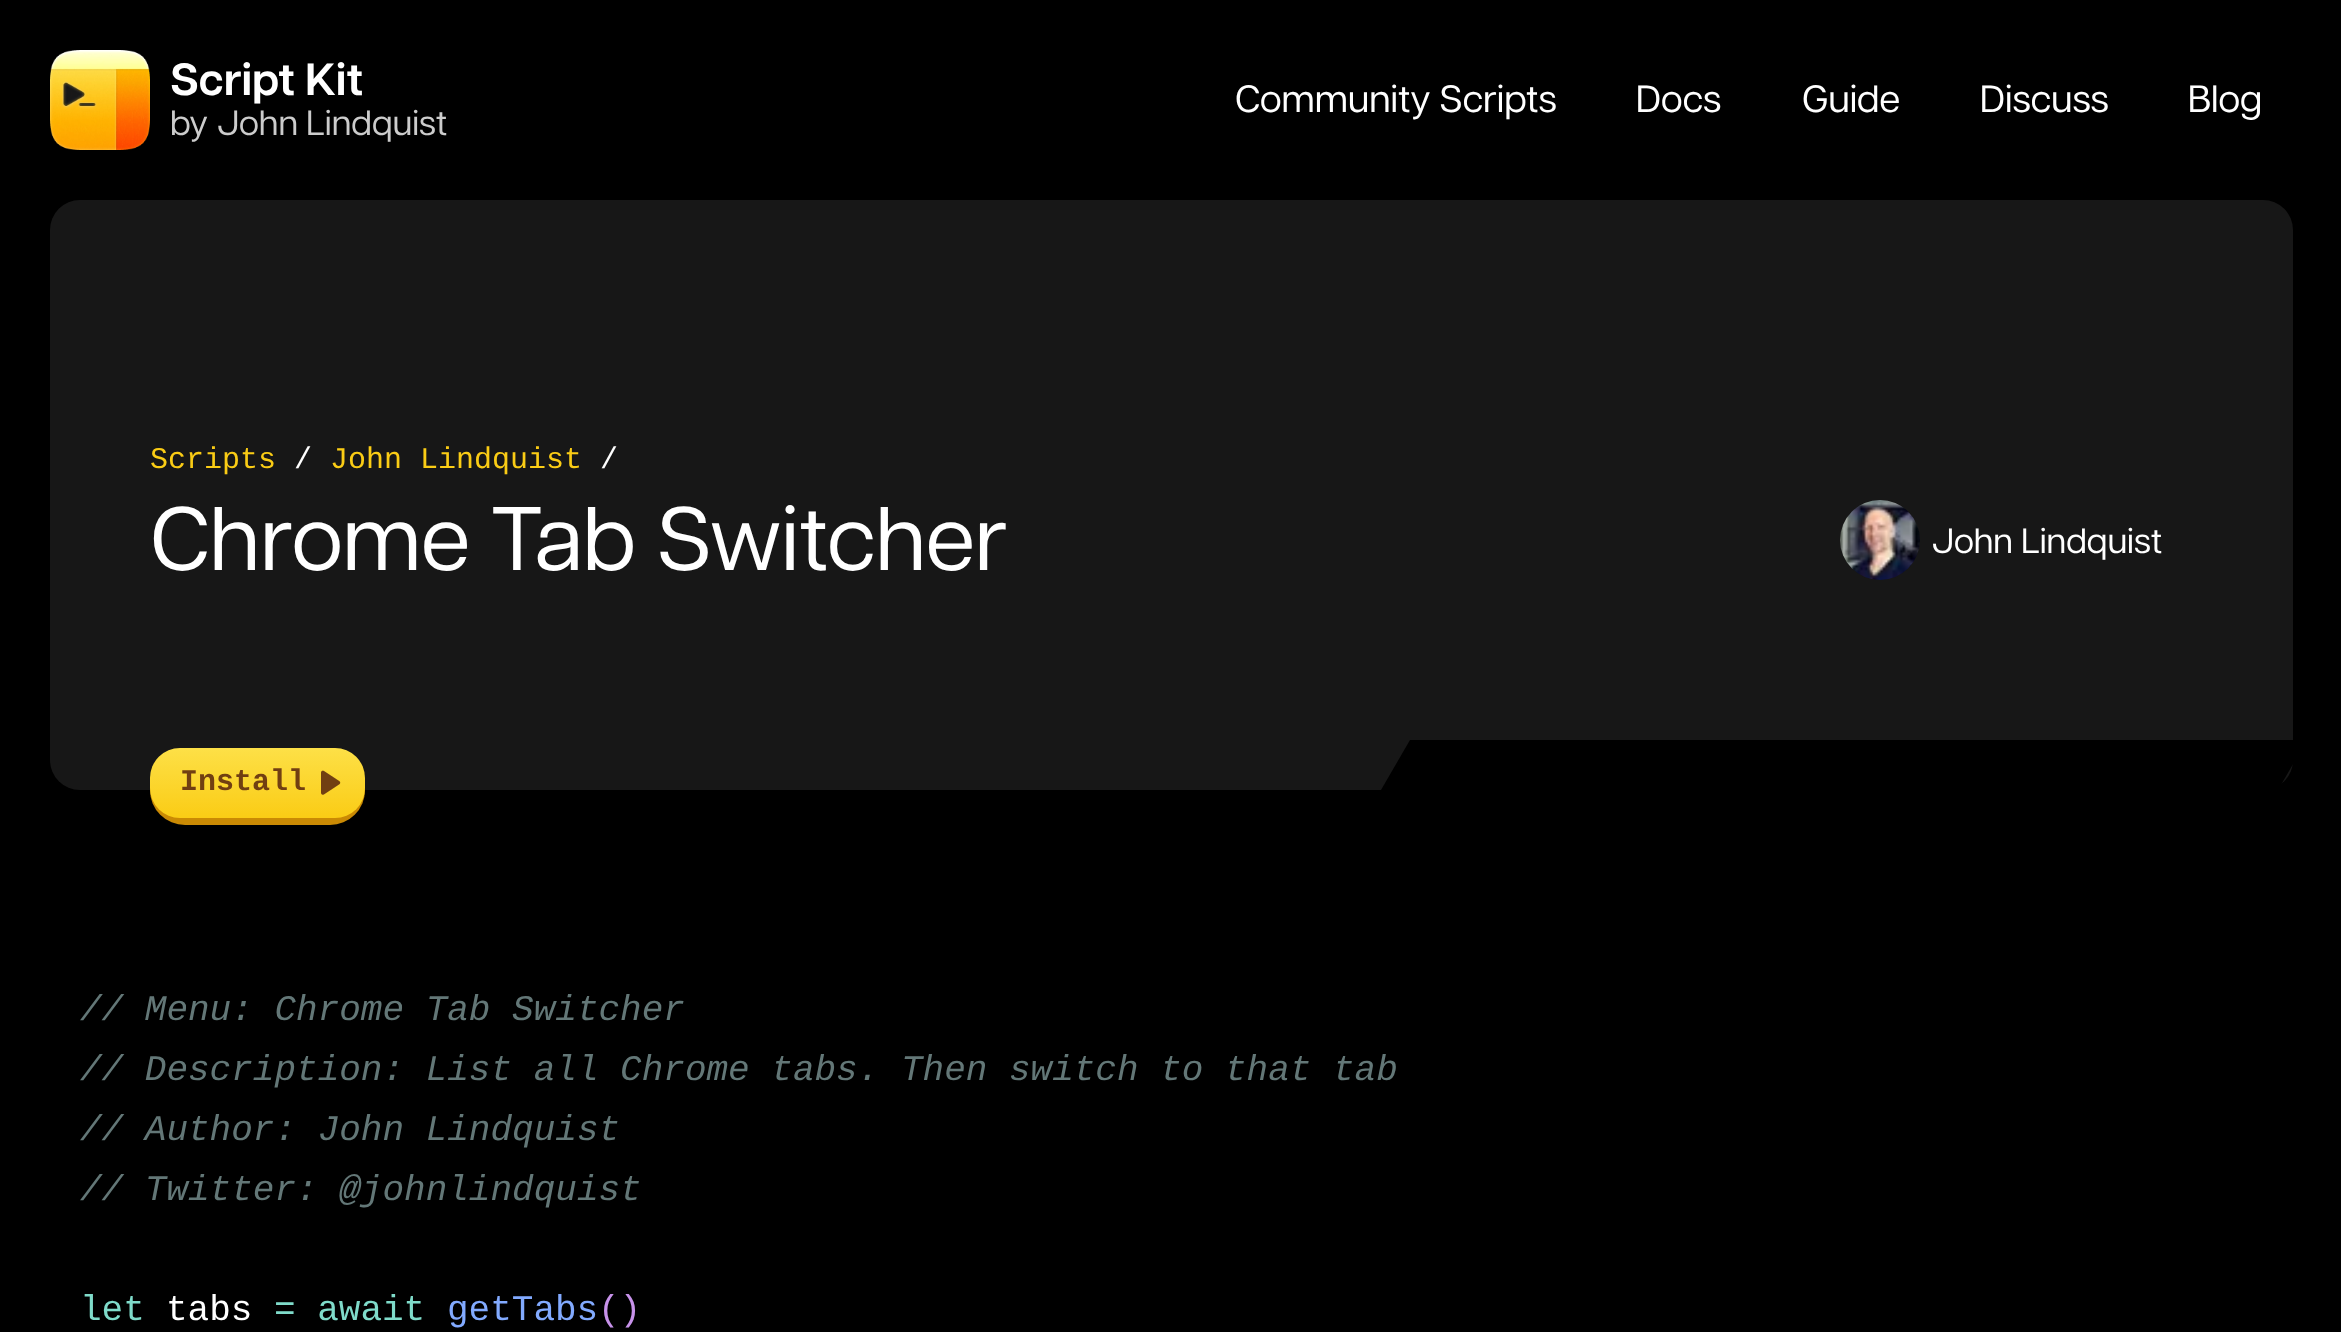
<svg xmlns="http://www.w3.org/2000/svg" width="2341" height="1332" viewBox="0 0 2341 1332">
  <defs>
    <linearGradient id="g1" gradientUnits="userSpaceOnUse" x1="258" y1="818" x2="258" y2="748"><stop offset="0" stop-color="#facc15"/><stop offset="1" stop-color="#fde047"/></linearGradient>
  </defs>
  <rect width="100%" height="100%" fill="#000"/>
  <image x="50" y="50" width="100" height="100" href="img/1.png"/>
  <rect x="50" y="200" width="2243" height="590" rx="30" fill="#171717"/>
  <rect x="150" y="755" width="215" height="70" rx="35" fill="#ca8a04"/>
  <rect x="150" y="748" width="215" height="70" rx="30" fill="url(#g1)"/>
  <image x="321" y="770" width="20" height="25" href="img/2.png"/>
  <image x="1840" y="500" width="80" height="80" href="img/3.png"/>
  <path d="M1410 740H2307L2278 790H1381Z" fill="#000"/>
  <text x="170" y="95" font-family="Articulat" font-size="45" font-weight="600" fill="#fff">Script Kit</text>
  <text x="170" y="135" font-family="Articulat" font-size="35" fill="#ccc">by John Lindquist</text>
  <g font-family="Articulat" font-size="38" fill="#fff">
    <text x="1235" y="112">Community Scripts</text>
    <text x="1636" y="112">Docs</text>
    <text x="1802" y="112">Guide</text>
    <text x="1980" y="112">Discuss</text>
    <text x="2188" y="112">Blog</text>
  </g>
  <text x="150" y="468" font-family="Liberation Mono" font-size="30" fill="#facc15">Scripts</text>
  <text x="294" y="468" font-family="Liberation Mono" font-size="30" fill="#fff">/</text>
  <text x="330" y="468" font-family="Liberation Mono" font-size="30" fill="#facc15">John Lindquist</text>
  <text x="600" y="468" font-family="Liberation Mono" font-size="30" fill="#fff">/</text>
  <text x="150" y="570" font-family="Articulat" font-size="90" fill="#fff">Chrome Tab Switcher</text>
  <text x="180" y="790" font-family="Liberation Mono" font-size="30" font-weight="bold" fill="#713f12">Install</text>
  <text x="1931" y="553" font-family="Articulat" font-size="35" fill="#fff">John Lindquist</text>
  <g font-family="Liberation Mono" font-size="36" font-style="italic" fill="#637777">
    <text x="80" y="1020">// Menu: Chrome Tab Switcher</text>
    <text x="80" y="1080">// Description: List all Chrome tabs. Then switch to that tab</text>
    <text x="80" y="1140">// Author: John Lindquist</text>
    <text x="80" y="1200">// Twitter: @johnlindquist</text>
  </g>
  <text x="80" y="1320" font-family="Liberation Mono" font-size="36" fill="#7fdbca">let</text>
  <text x="166" y="1320" font-family="Liberation Mono" font-size="36" fill="#fff">tabs</text>
  <text x="274" y="1320" font-family="Liberation Mono" font-size="36" fill="#7fdbca">= await</text>
  <text x="447" y="1320" font-family="Liberation Mono" font-size="36" fill="#82aaff">getTabs</text>
  <text x="598" y="1320" font-family="Liberation Mono" font-size="36" fill="#c792ea">()</text>
</svg>
